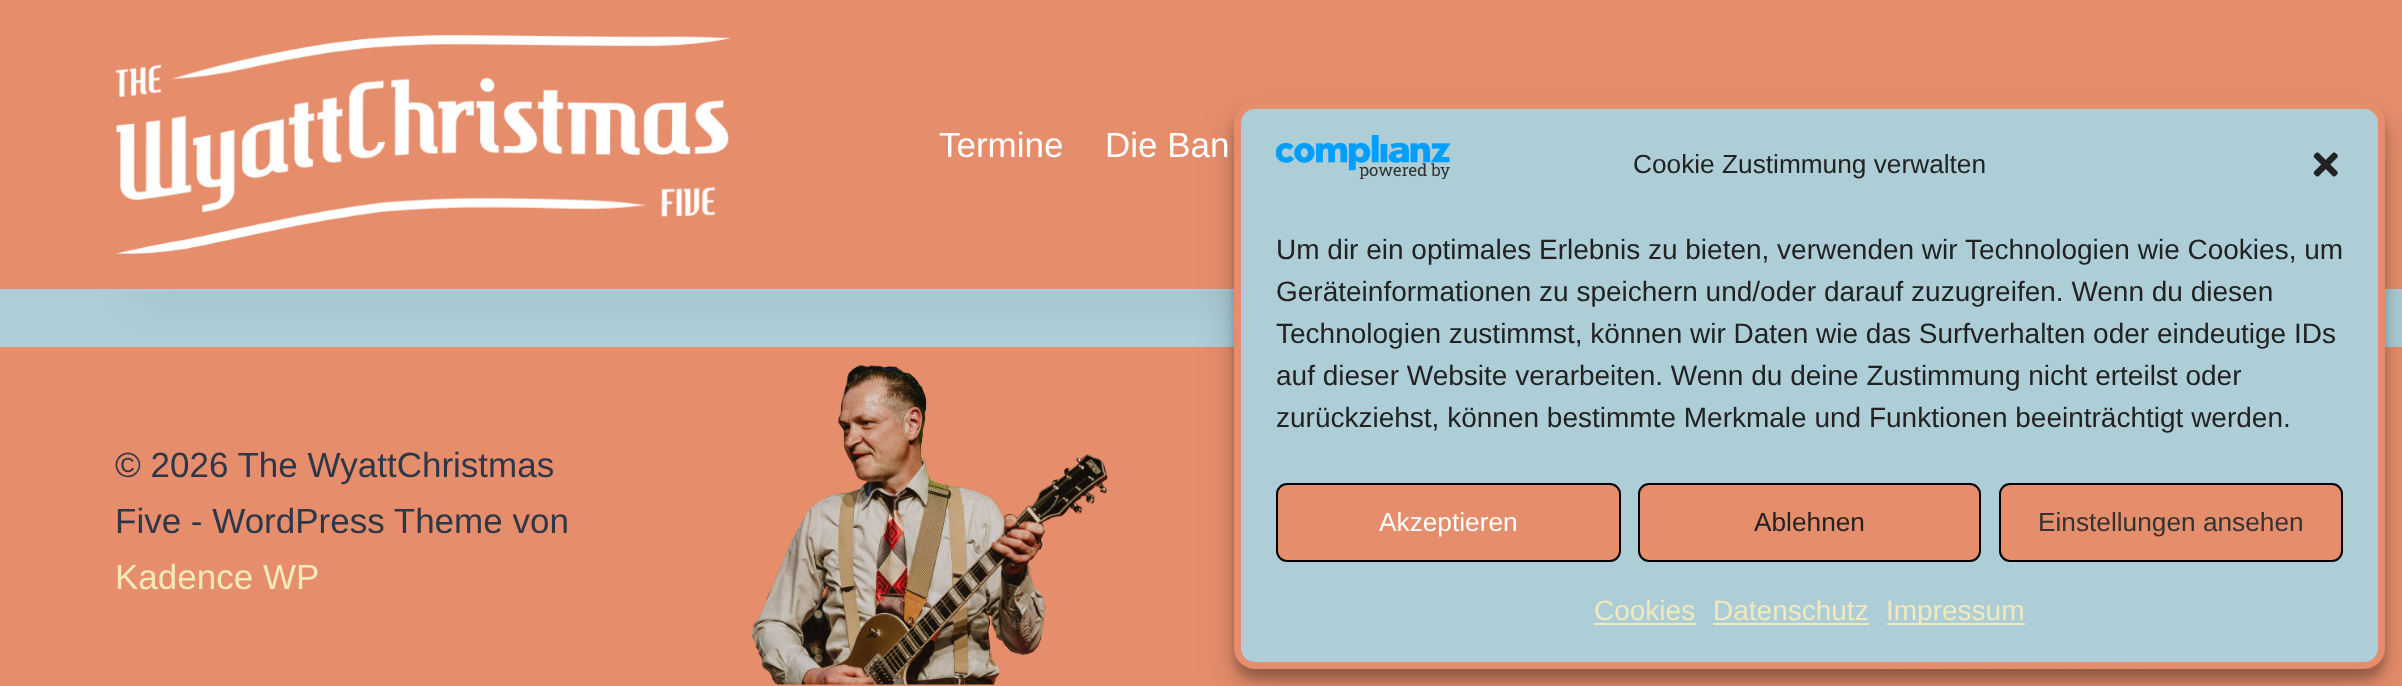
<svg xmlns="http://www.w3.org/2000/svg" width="2402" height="686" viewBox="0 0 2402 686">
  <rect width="100%" height="100%" fill="#adcdd7"/>
  <path d="M0 347h2402v339H0z" fill="#e68e6c"/>
  <path d="M133 -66h2139v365H133z" fill="#0000000d" filter="blur(22px)"/>
  <rect x="116" y="-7" width="2173" height="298" rx="7" fill="#adcdd7"/>
  <path d="M0 0h2402v289H0z" fill="#e68e6c"/>
  <image x="115" y="35" width="616" height="219" href="img/1.png"/>
  <image x="735" y="362" width="373" height="323" href="img/2.png"/>
  <image x="1871" y="669" width="333" height="4" href="img/3.png"/>
  <rect x="1234" y="112" width="1151" height="567" rx="21" fill="#0000003b" filter="blur(5px)"/>
  <rect x="1234" y="119" width="1151" height="567" rx="21" fill="#00000030" filter="blur(17.5px)"/>
  <rect x="1237.5" y="105.5" width="1144" height="560" rx="17.5" fill="#adcdd7" stroke="#e68e6c" stroke-width="7"/>
  <image x="1276" y="135" width="175" height="44" href="img/4.png"/>
  <image x="2313" y="152" width="25" height="25" href="img/5.png"/>
  <rect x="1277" y="484" width="343" height="77" rx="10" fill="#e68e6c" stroke="#000" stroke-width="2"/>
  <rect x="1639" y="484" width="341" height="77" rx="10" fill="#e68e6c" stroke="#000" stroke-width="2"/>
  <rect x="2000" y="484" width="342" height="77" rx="10" fill="#e68e6c" stroke="#000" stroke-width="2"/>
  <path d="M1594 623h102v2H1594z" fill="#f2eaba"/>
  <path d="M1713 623h156v2H1713z" fill="#f2eaba"/>
  <path d="M1887 623h138v2H1887z" fill="#f2eaba"/>
  <g font-family="Liberation Sans" font-size="35" fill="#fff">
    <text x="939" y="157">Termine</text>
    <text x="1105" y="157">Die Ban</text>
  </g>
  <g font-family="Liberation Sans" font-size="35" fill="#2d3748">
    <text x="115" y="477">© 2026 The WyattChristmas</text>
    <text x="115" y="533">Five - WordPress Theme von</text>
  </g>
  <text x="115" y="589" font-family="Liberation Sans" font-size="35" fill="#f2eaba">Kadence WP</text>
  <text x="1633" y="173" font-family="Liberation Sans" font-size="26.25" fill="#222">Cookie Zustimmung verwalten</text>
  <g font-family="Liberation Sans" font-size="28" fill="#222">
    <text x="1276" y="259">Um dir ein optimales Erlebnis zu bieten, verwenden wir Technologien wie Cookies, um</text>
    <text x="1276" y="301">Geräteinformationen zu speichern und/oder darauf zuzugreifen. Wenn du diesen</text>
    <text x="1276" y="343">Technologien zustimmst, können wir Daten wie das Surfverhalten oder eindeutige IDs</text>
    <text x="1276" y="385">auf dieser Website verarbeiten. Wenn du deine Zustimmung nicht erteilst oder</text>
    <text x="1276" y="427">zurückziehst, können bestimmte Merkmale und Funktionen beeinträchtigt werden.</text>
  </g>
  <text x="1379" y="531" font-family="Liberation Sans" font-size="26.25" fill="#fff">Akzeptieren</text>
  <text x="1754" y="531" font-family="Liberation Sans" font-size="26.25" fill="#222">Ablehnen</text>
  <text x="2038" y="531" font-family="Liberation Sans" font-size="26.25" fill="#333">Einstellungen ansehen</text>
  <g font-family="Liberation Sans" font-size="28" fill="#f2eaba">
    <text x="1594" y="620">Cookies</text>
    <text x="1713" y="620">Datenschutz</text>
    <text x="1886" y="620">Impressum</text>
  </g>
</svg>
